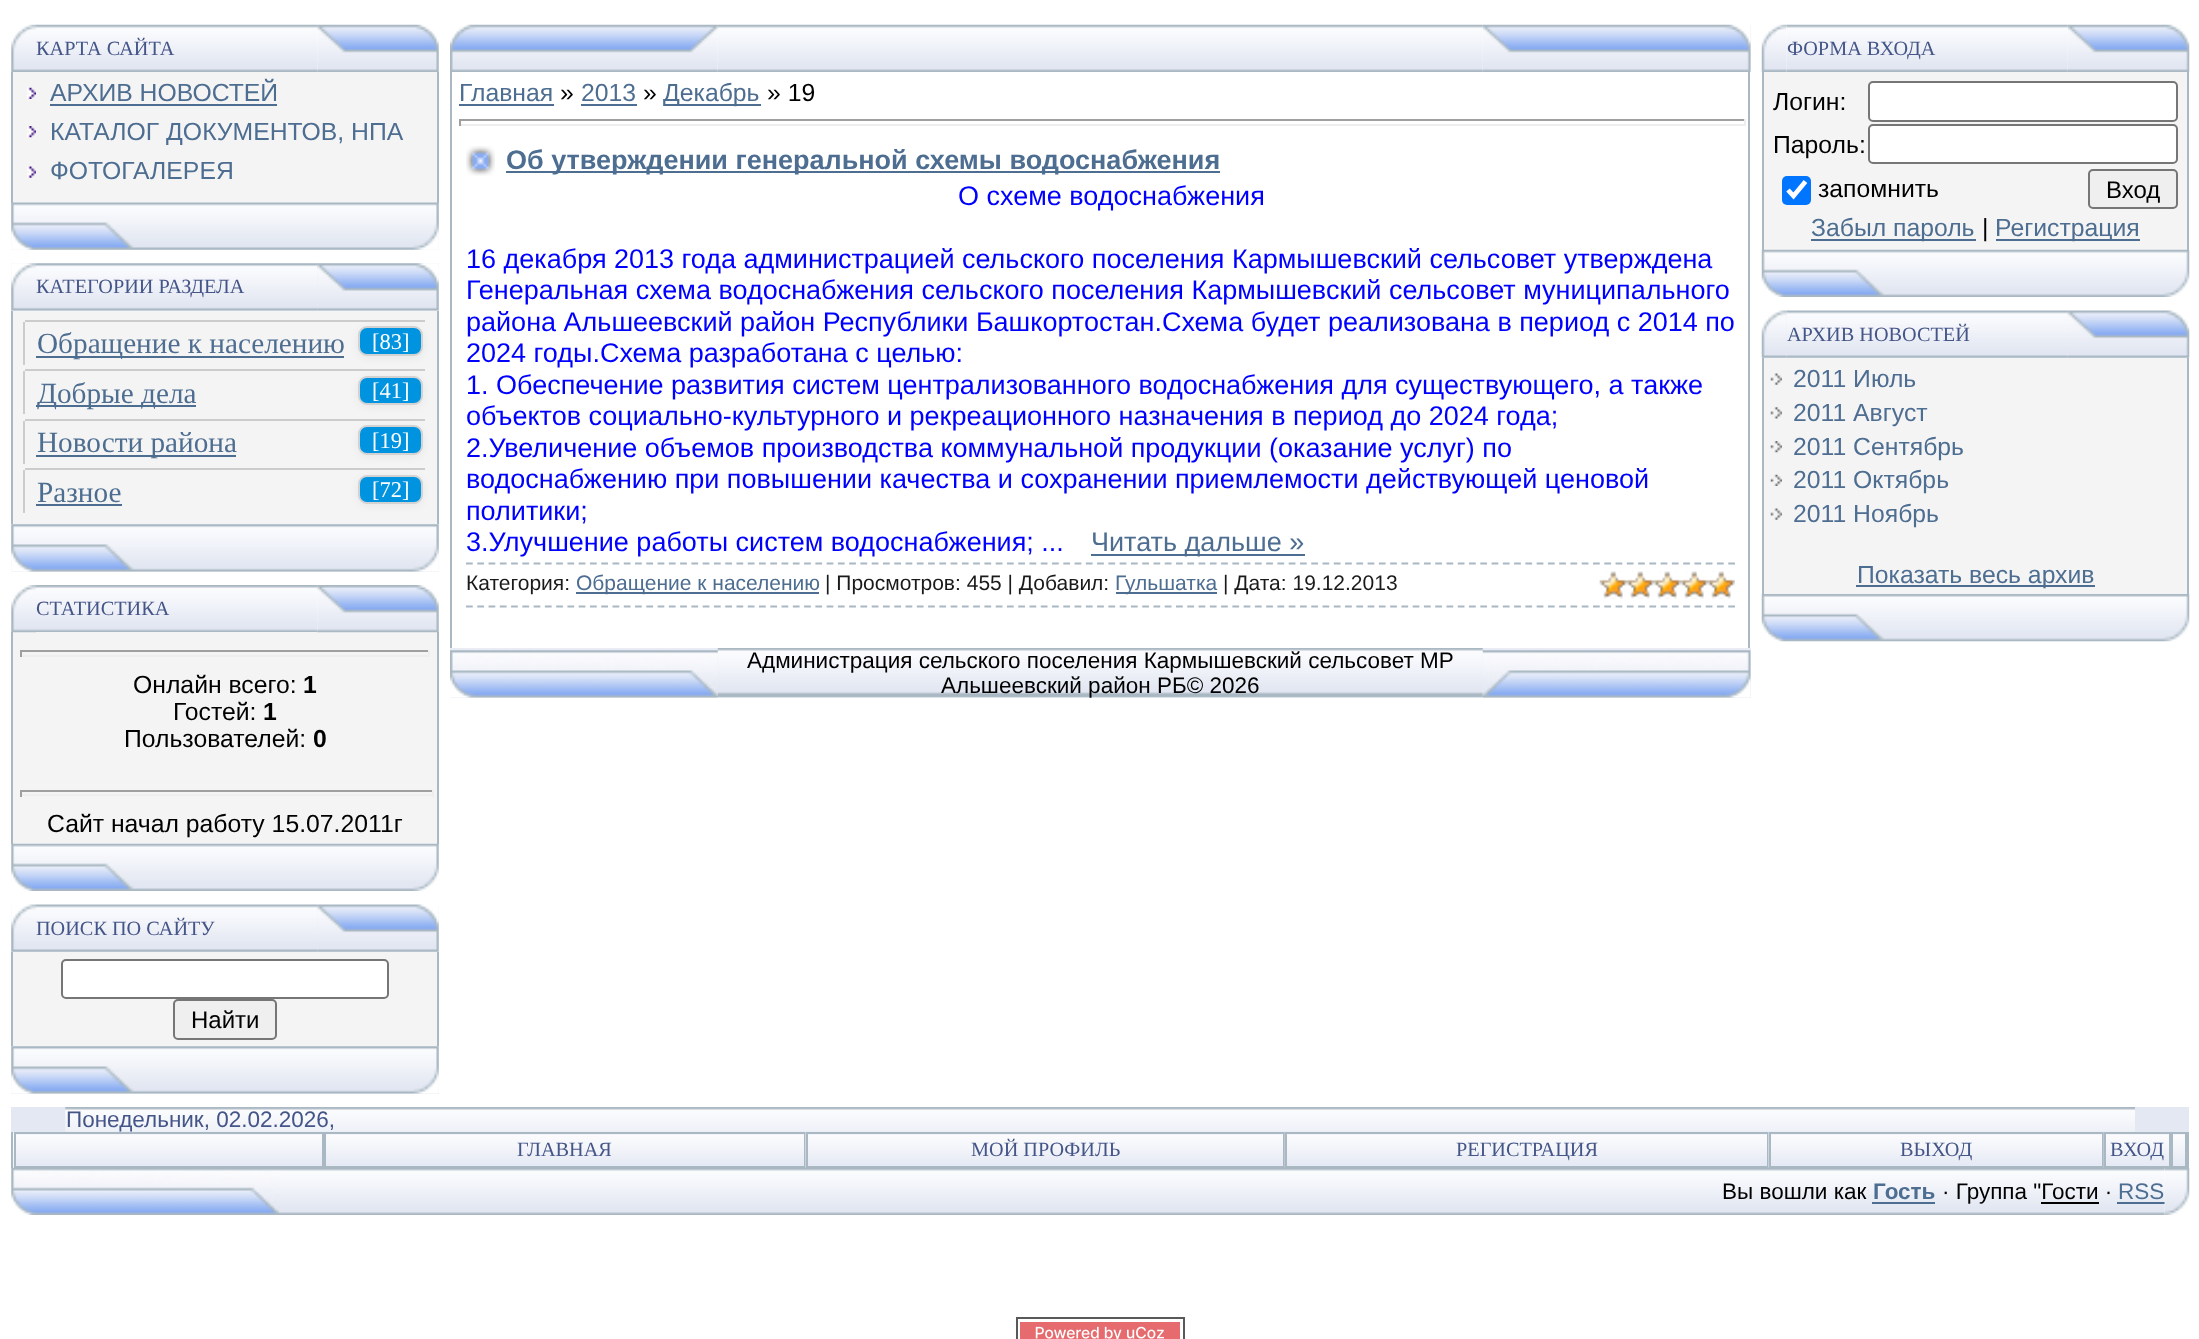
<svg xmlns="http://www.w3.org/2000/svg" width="2199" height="1339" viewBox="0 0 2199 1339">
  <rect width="100%" height="100%" fill="#fff"/>
  <image x="11" y="24" width="25" height="48" href="img/1.png"/>
  <image x="36" y="24" width="282" height="48" href="img/2.png"/>
  <image x="317" y="24" width="122" height="48" href="img/3.png"/>
  <path d="M13 72h424v131H13z" fill="#f4f4f4"/>
  <path d="M437 72h2v131H437z" fill="#a9b8c2"/>
  <path d="M11 72h2v131H11z" fill="#a9b8c2"/>
  <image x="27" y="87" width="9" height="12" href="img/4.png"/>
  <path d="M50 104h227v2H50z" fill="#4d6d91"/>
  <image x="27" y="126" width="9" height="12" href="img/5.png"/>
  <image x="27" y="166" width="9" height="12" href="img/6.png"/>
  <path d="M11 203h428v47H11z" fill="#e9ecf5"/>
  <image x="11" y="202" width="428" height="48" href="img/7.png"/>
  <path d="M11 263h428v48H11z" fill="#e9ecf5"/>
  <image x="11" y="263" width="25" height="48" href="img/8.png"/>
  <image x="36" y="263" width="282" height="48" href="img/9.png"/>
  <image x="317" y="263" width="122" height="48" href="img/10.png"/>
  <path d="M13 311h424v213H13z" fill="#f4f4f4"/>
  <path d="M437 311h2v213H437z" fill="#a9b8c2"/>
  <path d="M11 311h2v213H11z" fill="#a9b8c2"/>
  <path d="M25 320h400v2H25z" fill="#ccc"/>
  <path d="M23 322h2v43H23z" fill="#ccc"/>
  <path d="M25 369h400v2H25z" fill="#ccc"/>
  <rect x="358" y="329" width="65" height="29" rx="9" fill="#0000000d" filter="blur(4.5px)"/>
  <path d="M36 356h308v2H36z" fill="#4d6d91"/>
  <rect x="359" y="327" width="63" height="28" rx="8" fill="#0094e0" stroke="#d2d2d2" stroke-width="2"/>
  <path d="M23 371h2v43H23z" fill="#ccc"/>
  <path d="M36 405h160v2H36z" fill="#4d6d91"/>
  <path d="M25 419h400v2H25z" fill="#ccc"/>
  <rect x="358" y="378" width="65" height="29" rx="9" fill="#0000000d" filter="blur(4.5px)"/>
  <rect x="359" y="377" width="63" height="27" rx="8" fill="#0094e0" stroke="#d2d2d2" stroke-width="2"/>
  <path d="M23 421h2v43H23z" fill="#ccc"/>
  <path d="M36 455h200v2H36z" fill="#4d6d91"/>
  <path d="M25 468h400v2H25z" fill="#ccc"/>
  <rect x="358" y="428" width="65" height="29" rx="9" fill="#0000000d" filter="blur(4.5px)"/>
  <rect x="359" y="426" width="63" height="28" rx="8" fill="#0094e0" stroke="#d2d2d2" stroke-width="2"/>
  <path d="M23 470h2v43H23z" fill="#ccc"/>
  <path d="M36 504h86v2H36z" fill="#4d6d91"/>
  <rect x="358" y="477" width="65" height="29" rx="9" fill="#0000000d" filter="blur(4.5px)"/>
  <rect x="359" y="476" width="63" height="27" rx="8" fill="#0094e0" stroke="#d2d2d2" stroke-width="2"/>
  <path d="M11 524h428v48H11z" fill="#e9ecf5"/>
  <image x="11" y="524" width="428" height="48" href="img/11.png"/>
  <path d="M13 632h424v212H13z" fill="#f4f4f4"/>
  <path d="M11 632h2v212H11z" fill="#a9b8c2"/>
  <image x="11" y="585" width="25" height="48" href="img/12.png"/>
  <image x="36" y="585" width="282" height="47" href="img/13.png"/>
  <path d="M437 632h2v212H437z" fill="#a9b8c2"/>
  <image x="317" y="585" width="122" height="48" href="img/14.png"/>
  <path d="M20 650h410v2H20z" fill="#9f9f9f"/>
  <path d="M428 650h2v7H428z" fill="#eee"/>
  <path d="M20 655h410v2H20z" fill="#eee"/>
  <path d="M20 650h2v7H20z" fill="#9f9f9f"/>
  <path d="M20 790h414v2H20z" fill="#9f9f9f"/>
  <path d="M432 790h2v7H432z" fill="#eee"/>
  <path d="M20 794h414v2H20z" fill="#eee"/>
  <path d="M20 790h2v7H20z" fill="#9f9f9f"/>
  <image x="11" y="843" width="428" height="48" href="img/15.png"/>
  <path d="M11 905h428v47H11z" fill="#e9ecf5"/>
  <image x="11" y="904" width="25" height="48" href="img/16.png"/>
  <image x="36" y="904" width="282" height="48" href="img/17.png"/>
  <image x="317" y="904" width="122" height="48" href="img/18.png"/>
  <path d="M13 952h424v94H13z" fill="#f4f4f4"/>
  <path d="M437 952h2v94H437z" fill="#a9b8c2"/>
  <path d="M11 952h2v94H11z" fill="#a9b8c2"/>
  <rect x="62" y="960" width="326" height="38" rx="4" fill="#fff" stroke="#767676" stroke-width="2"/>
  <rect x="174" y="1000" width="102" height="39" rx="4" fill="#efefef" stroke="#767676" stroke-width="2"/>
  <path d="M11 1046h428v48H11z" fill="#e9ecf5"/>
  <image x="11" y="1046" width="428" height="48" href="img/11.png"/>
  <image x="717" y="24" width="766" height="48" href="img/20.png"/>
  <image x="450" y="24" width="268" height="48" href="img/19.png"/>
  <path d="M1750 25h1v47H1750z" fill="#e9ecf5"/>
  <image x="1482" y="24" width="269" height="48" href="img/21.png"/>
  <path d="M1748 72h2v576H1748z" fill="#a9b8c2"/>
  <path d="M450 72h2v576H450z" fill="#a9b8c2"/>
  <path d="M459 104h95v2H459z" fill="#4d6d91"/>
  <path d="M581 104h56v2H581z" fill="#4d6d91"/>
  <path d="M664 104h97v2H664z" fill="#4d6d91"/>
  <path d="M459 119h1287v2H459z" fill="#9f9f9f"/>
  <path d="M1744 119h2v7H1744z" fill="#eee"/>
  <path d="M459 124h1287v2H459z" fill="#eee"/>
  <path d="M459 119h2v7H459z" fill="#9f9f9f"/>
  <image x="466" y="146" width="29" height="30" href="img/22.png"/>
  <path d="M506 171h714v2H506z" fill="#4d6d91"/>
  <path d="M1091 554h214v2H1091z" fill="#4d6d91"/>
  <path d="M466 563.5H1735" fill="none" stroke="#a9b8c2" stroke-width="2.2" stroke-dasharray="6.75 4.52"/>
  <path d="M466 606.5H1735" fill="none" stroke="#a9b8c2" stroke-width="2.2" stroke-dasharray="6.75 4.52"/>
  <path d="M576 592h243v2H576z" fill="#4d6d91"/>
  <path d="M1116 592h101v2H1116z" fill="#4d6d91"/>
  <image x="1599" y="571" width="136" height="28" href="img/23.png"/>
  <image x="1599" y="571" width="136" height="28" href="img/24.png"/>
  <path d="M450 648h1301v50H450z" fill="#e9ecf5"/>
  <image x="717" y="648" width="766" height="50" href="img/26.png"/>
  <image x="450" y="650" width="268" height="48" href="img/25.png"/>
  <image x="1482" y="650" width="269" height="48" href="img/27.png"/>
  <image x="1786" y="24" width="282" height="48" href="img/29.png"/>
  <image x="1761" y="24" width="26" height="48" href="img/28.png"/>
  <image x="2067" y="24" width="123" height="48" href="img/30.png"/>
  <path d="M1764 72h423v178H1764z" fill="#f4f4f4"/>
  <path d="M2187 72h2v178H2187z" fill="#a9b8c2"/>
  <path d="M1762 72h2v178H1762z" fill="#a9b8c2"/>
  <rect x="1869" y="82" width="308" height="39" rx="4" fill="#fff" stroke="#767676" stroke-width="2"/>
  <rect x="1869" y="125" width="308" height="38" rx="4" fill="#fff" stroke="#767676" stroke-width="2"/>
  <rect x="1782" y="176" width="29" height="29" rx="5" fill="#0075ff"/>
  <path d="M1788 190L1793.5 196L1805.5 181.5" fill="none" stroke="#fff" stroke-width="4.7"/>
  <rect x="2089" y="170" width="88" height="38" rx="4" fill="#efefef" stroke="#767676" stroke-width="2"/>
  <path d="M1811 239h165v2H1811z" fill="#4d6d91"/>
  <path d="M1996 239h144v2H1996z" fill="#4d6d91"/>
  <image x="1761" y="249" width="429" height="48" href="img/31.png"/>
  <path d="M1762 311h427v47H1762z" fill="#e9ecf5"/>
  <image x="1786" y="310" width="282" height="48" href="img/33.png"/>
  <image x="1761" y="310" width="26" height="48" href="img/32.png"/>
  <image x="2067" y="310" width="123" height="48" href="img/34.png"/>
  <path d="M1764 358h423v236H1764z" fill="#f4f4f4"/>
  <path d="M2187 358h2v236H2187z" fill="#a9b8c2"/>
  <path d="M1762 358h2v236H1762z" fill="#a9b8c2"/>
  <image x="1770" y="373" width="12" height="12" href="img/35.png"/>
  <image x="1770" y="407" width="12" height="12" href="img/36.png"/>
  <image x="1770" y="441" width="12" height="12" href="img/37.png"/>
  <image x="1770" y="474" width="12" height="12" href="img/38.png"/>
  <image x="1770" y="508" width="12" height="12" href="img/35.png"/>
  <path d="M1856 585h239v2H1856z" fill="#4d6d91"/>
  <image x="1761" y="594" width="429" height="48" href="img/39.png"/>
  <path d="M11 1107h2178v25H11z" fill="#e4e8f3"/>
  <image x="65" y="1107" width="2070" height="25" href="img/40.png"/>
  <path d="M2187 1132h2v36H2187z" fill="#a9b8c2"/>
  <path d="M11 1132h2v36H11z" fill="#a9b8c2"/>
  <image x="13" y="1132" width="309" height="36" href="img/41.png"/>
  <path d="M15 1133h308v34H15z" fill="none" stroke="#a9b8c2" stroke-width="2"/>
  <image x="326" y="1134" width="478" height="32" href="img/42.png"/>
  <path d="M325 1133h480v34H325z" fill="none" stroke="#a9b8c2" stroke-width="2"/>
  <image x="805" y="1132" width="478" height="36" href="img/43.png"/>
  <path d="M807 1133h477v34H807z" fill="none" stroke="#a9b8c2" stroke-width="2"/>
  <image x="1284" y="1132" width="483" height="36" href="img/44.png"/>
  <path d="M1286 1133h482v34H1286z" fill="none" stroke="#a9b8c2" stroke-width="2"/>
  <image x="1768" y="1132" width="334" height="36" href="img/45.png"/>
  <path d="M1770 1133h333v34H1770z" fill="none" stroke="#a9b8c2" stroke-width="2"/>
  <image x="2103" y="1132" width="66" height="36" href="img/46.png"/>
  <path d="M2105 1133h65v34H2105z" fill="none" stroke="#a9b8c2" stroke-width="2"/>
  <image x="2173" y="1134" width="12" height="32" href="img/47.png"/>
  <path d="M2172 1133h14v34H2172z" fill="none" stroke="#a9b8c2" stroke-width="2"/>
  <image x="11" y="1167" width="268" height="48" href="img/48.png"/>
  <image x="279" y="1167" width="1886" height="48" href="img/49.png"/>
  <path d="M1872 1202h63v2H1872z" fill="#4d6d91"/>
  <path d="M2117 1202h48v2H2117z" fill="#4d6d91"/>
  <path d="M2041 1202h58v2H2041z" fill="#000"/>
  <image x="2164" y="1167" width="26" height="48" href="img/50.png"/>
  <image x="1016" y="1317" width="169" height="22" href="img/51.png"/>
  <text x="36" y="55" font-family="Liberation Serif" font-size="20.25" fill="#458">КАРТА САЙТА</text>
  <g font-family="Liberation Sans" font-size="24.75" fill="#4d6d91">
    <text x="50" y="101">АРХИВ НОВОСТЕЙ</text>
    <text x="50" y="140">КАТАЛОГ ДОКУМЕНТОВ, НПА</text>
    <text x="50" y="179">ФОТОГАЛЕРЕЯ</text>
  </g>
  <text x="36" y="293" font-family="Liberation Serif" font-size="20.25" fill="#458">КАТЕГОРИИ РАЗДЕЛА</text>
  <text x="37" y="353" font-family="Liberation Serif" font-size="29.25" fill="#4d6d91">Обращение к населению</text>
  <text x="372" y="349" font-family="Liberation Serif" font-size="22.5" fill="#fff">[83]</text>
  <text x="37" y="403" font-family="Liberation Serif" font-size="29.25" fill="#4d6d91">Добрые дела</text>
  <text x="372" y="398" font-family="Liberation Serif" font-size="22.5" fill="#fff">[41]</text>
  <text x="37" y="452" font-family="Liberation Serif" font-size="29.25" fill="#4d6d91">Новости района</text>
  <text x="372" y="448" font-family="Liberation Serif" font-size="22.5" fill="#fff">[19]</text>
  <text x="37" y="502" font-family="Liberation Serif" font-size="29.25" fill="#4d6d91">Разное</text>
  <text x="372" y="497" font-family="Liberation Serif" font-size="22.5" fill="#fff">[72]</text>
  <text x="36" y="615" font-family="Liberation Serif" font-size="20.25" fill="#458">СТАТИСТИКА</text>
  <text x="133" y="693" font-family="Liberation Sans" font-size="24.75" fill="#000">Онлайн всего:</text>
  <text x="303" y="693" font-family="Liberation Sans" font-size="24.75" font-weight="bold" fill="#000">1</text>
  <text x="173" y="720" font-family="Liberation Sans" font-size="24.75" fill="#000">Гостей:</text>
  <text x="263" y="720" font-family="Liberation Sans" font-size="24.75" font-weight="bold" fill="#000">1</text>
  <text x="124" y="747" font-family="Liberation Sans" font-size="24.75" fill="#000">Пользователей:</text>
  <text x="313" y="747" font-family="Liberation Sans" font-size="24.75" font-weight="bold" fill="#000">0</text>
  <text x="47" y="832" font-family="Liberation Sans" font-size="24.75" fill="#000">Сайт начал работу 15.07.2011г</text>
  <text x="36" y="935" font-family="Liberation Serif" font-size="20.25" fill="#458">ПОИСК ПО САЙТУ</text>
  <text x="191" y="1028" font-family="Liberation Sans" font-size="24" fill="#000">Найти</text>
  <text x="459" y="101" font-family="Liberation Sans" font-size="24.75" fill="#4d6d91">Главная</text>
  <text x="560" y="101" font-family="Liberation Sans" font-size="24.75" fill="#000">»</text>
  <text x="581" y="101" font-family="Liberation Sans" font-size="24.75" fill="#4d6d91">2013</text>
  <text x="643" y="101" font-family="Liberation Sans" font-size="24.75" fill="#000">»</text>
  <text x="663" y="101" font-family="Liberation Sans" font-size="24.75" fill="#4d6d91">Декабрь</text>
  <text x="767" y="101" font-family="Liberation Sans" font-size="24.75" fill="#000">» 19</text>
  <text x="506" y="169" font-family="Liberation Sans" font-size="27" font-weight="bold" fill="#4d6d91">Об утверждении генеральной схемы водоснабжения</text>
  <g font-family="Liberation Sans" font-size="27" fill="#00f">
    <text x="958" y="205">О схеме водоснабжения</text>
    <text x="466" y="268">16 декабря 2013 года администрацией сельского поселения Кармышевский сельсовет утверждена</text>
    <text x="466" y="299">Генеральная схема водоснабжения сельского поселения Кармышевский сельсовет муниципального</text>
    <text x="466" y="331">района Альшеевский район Республики Башкортостан.Схема будет реализована в период с 2014 по</text>
    <text x="466" y="362">2024 годы.Схема разработана с целью:</text>
    <text x="466" y="394">1. Обеспечение развития систем централизованного водоснабжения для существующего, а также</text>
    <text x="466" y="425">объектов социально-культурного и рекреационного назначения в период до 2024 года;</text>
    <text x="466" y="457">2.Увеличение объемов производства коммунальной продукции (оказание услуг) по</text>
    <text x="466" y="488">водоснабжению при повышении качества и сохранении приемлемости действующей ценовой</text>
    <text x="466" y="520">политики;</text>
    <text x="466" y="551">3.Улучшение работы систем водоснабжения; ...</text>
  </g>
  <text x="1091" y="551" font-family="Liberation Sans" font-size="27" fill="#4d6d91">Читать дальше »</text>
  <text x="466" y="590" font-family="Liberation Sans" font-size="21" fill="#1a1a1a">Категория:</text>
  <text x="576" y="590" font-family="Liberation Sans" font-size="21" fill="#4d6d91">Обращение к населению</text>
  <text x="825" y="590" font-family="Liberation Sans" font-size="21" fill="#1a1a1a">| Просмотров: 455 | Добавил:</text>
  <text x="1115" y="590" font-family="Liberation Sans" font-size="21" fill="#4d6d91">Гульшатка</text>
  <text x="1223" y="590" font-family="Liberation Sans" font-size="21" fill="#1a1a1a">| Дата: 19.12.2013</text>
  <g font-family="Liberation Sans" font-size="22.5" fill="#000">
    <text x="747" y="668">Администрация сельского поселения Кармышевский сельсовет МР</text>
    <text x="941" y="693">Альшеевский район РБ© 2026</text>
  </g>
  <text x="1787" y="55" font-family="Liberation Serif" font-size="20.25" fill="#458">ФОРМА ВХОДА</text>
  <g font-family="Liberation Sans" font-size="24.75" fill="#000">
    <text x="1773" y="110">Логин:</text>
    <text x="1773" y="153">Пароль:</text>
    <text x="1818" y="197">запомнить</text>
  </g>
  <text x="2106" y="198" font-family="Liberation Sans" font-size="24" fill="#000">Вход</text>
  <text x="1811" y="236" font-family="Liberation Sans" font-size="24.75" fill="#4d6d91">Забыл пароль</text>
  <text x="1982" y="236" font-family="Liberation Sans" font-size="24.75" fill="#000">|</text>
  <text x="1995" y="236" font-family="Liberation Sans" font-size="24.75" fill="#4d6d91">Регистрация</text>
  <text x="1787" y="341" font-family="Liberation Serif" font-size="20.25" fill="#458">АРХИВ НОВОСТЕЙ</text>
  <g font-family="Liberation Sans" font-size="24.75" fill="#4d6d91">
    <text x="1793" y="387">2011 Июль</text>
    <text x="1793" y="421">2011 Август</text>
    <text x="1793" y="455">2011 Сентябрь</text>
    <text x="1793" y="488">2011 Октябрь</text>
    <text x="1793" y="522">2011 Ноябрь</text>
    <text x="1857" y="583">Показать весь архив</text>
  </g>
  <text x="66" y="1127" font-family="Liberation Sans" font-size="22.5" fill="#458">Понедельник, 02.02.2026,</text>
  <g font-family="Liberation Serif" font-size="20.25" fill="#458">
    <text x="517" y="1156">ГЛАВНАЯ</text>
    <text x="971" y="1156">МОЙ ПРОФИЛЬ</text>
    <text x="1456" y="1156">РЕГИСТРАЦИЯ</text>
    <text x="1900" y="1156">ВЫХОД</text>
    <text x="2110" y="1156">ВХОД</text>
  </g>
  <text x="1722" y="1199" font-family="Liberation Sans" font-size="22.5" fill="#000">Вы вошли как</text>
  <text x="1873" y="1199" font-family="Liberation Sans" font-size="22.5" font-weight="bold" fill="#4d6d91">Гость</text>
  <text x="1942" y="1199" font-family="Liberation Sans" font-size="22.5" fill="#000">· Группа "Гости ·</text>
  <text x="2118" y="1199" font-family="Liberation Sans" font-size="22.5" fill="#4d6d91">RSS</text>
</svg>
